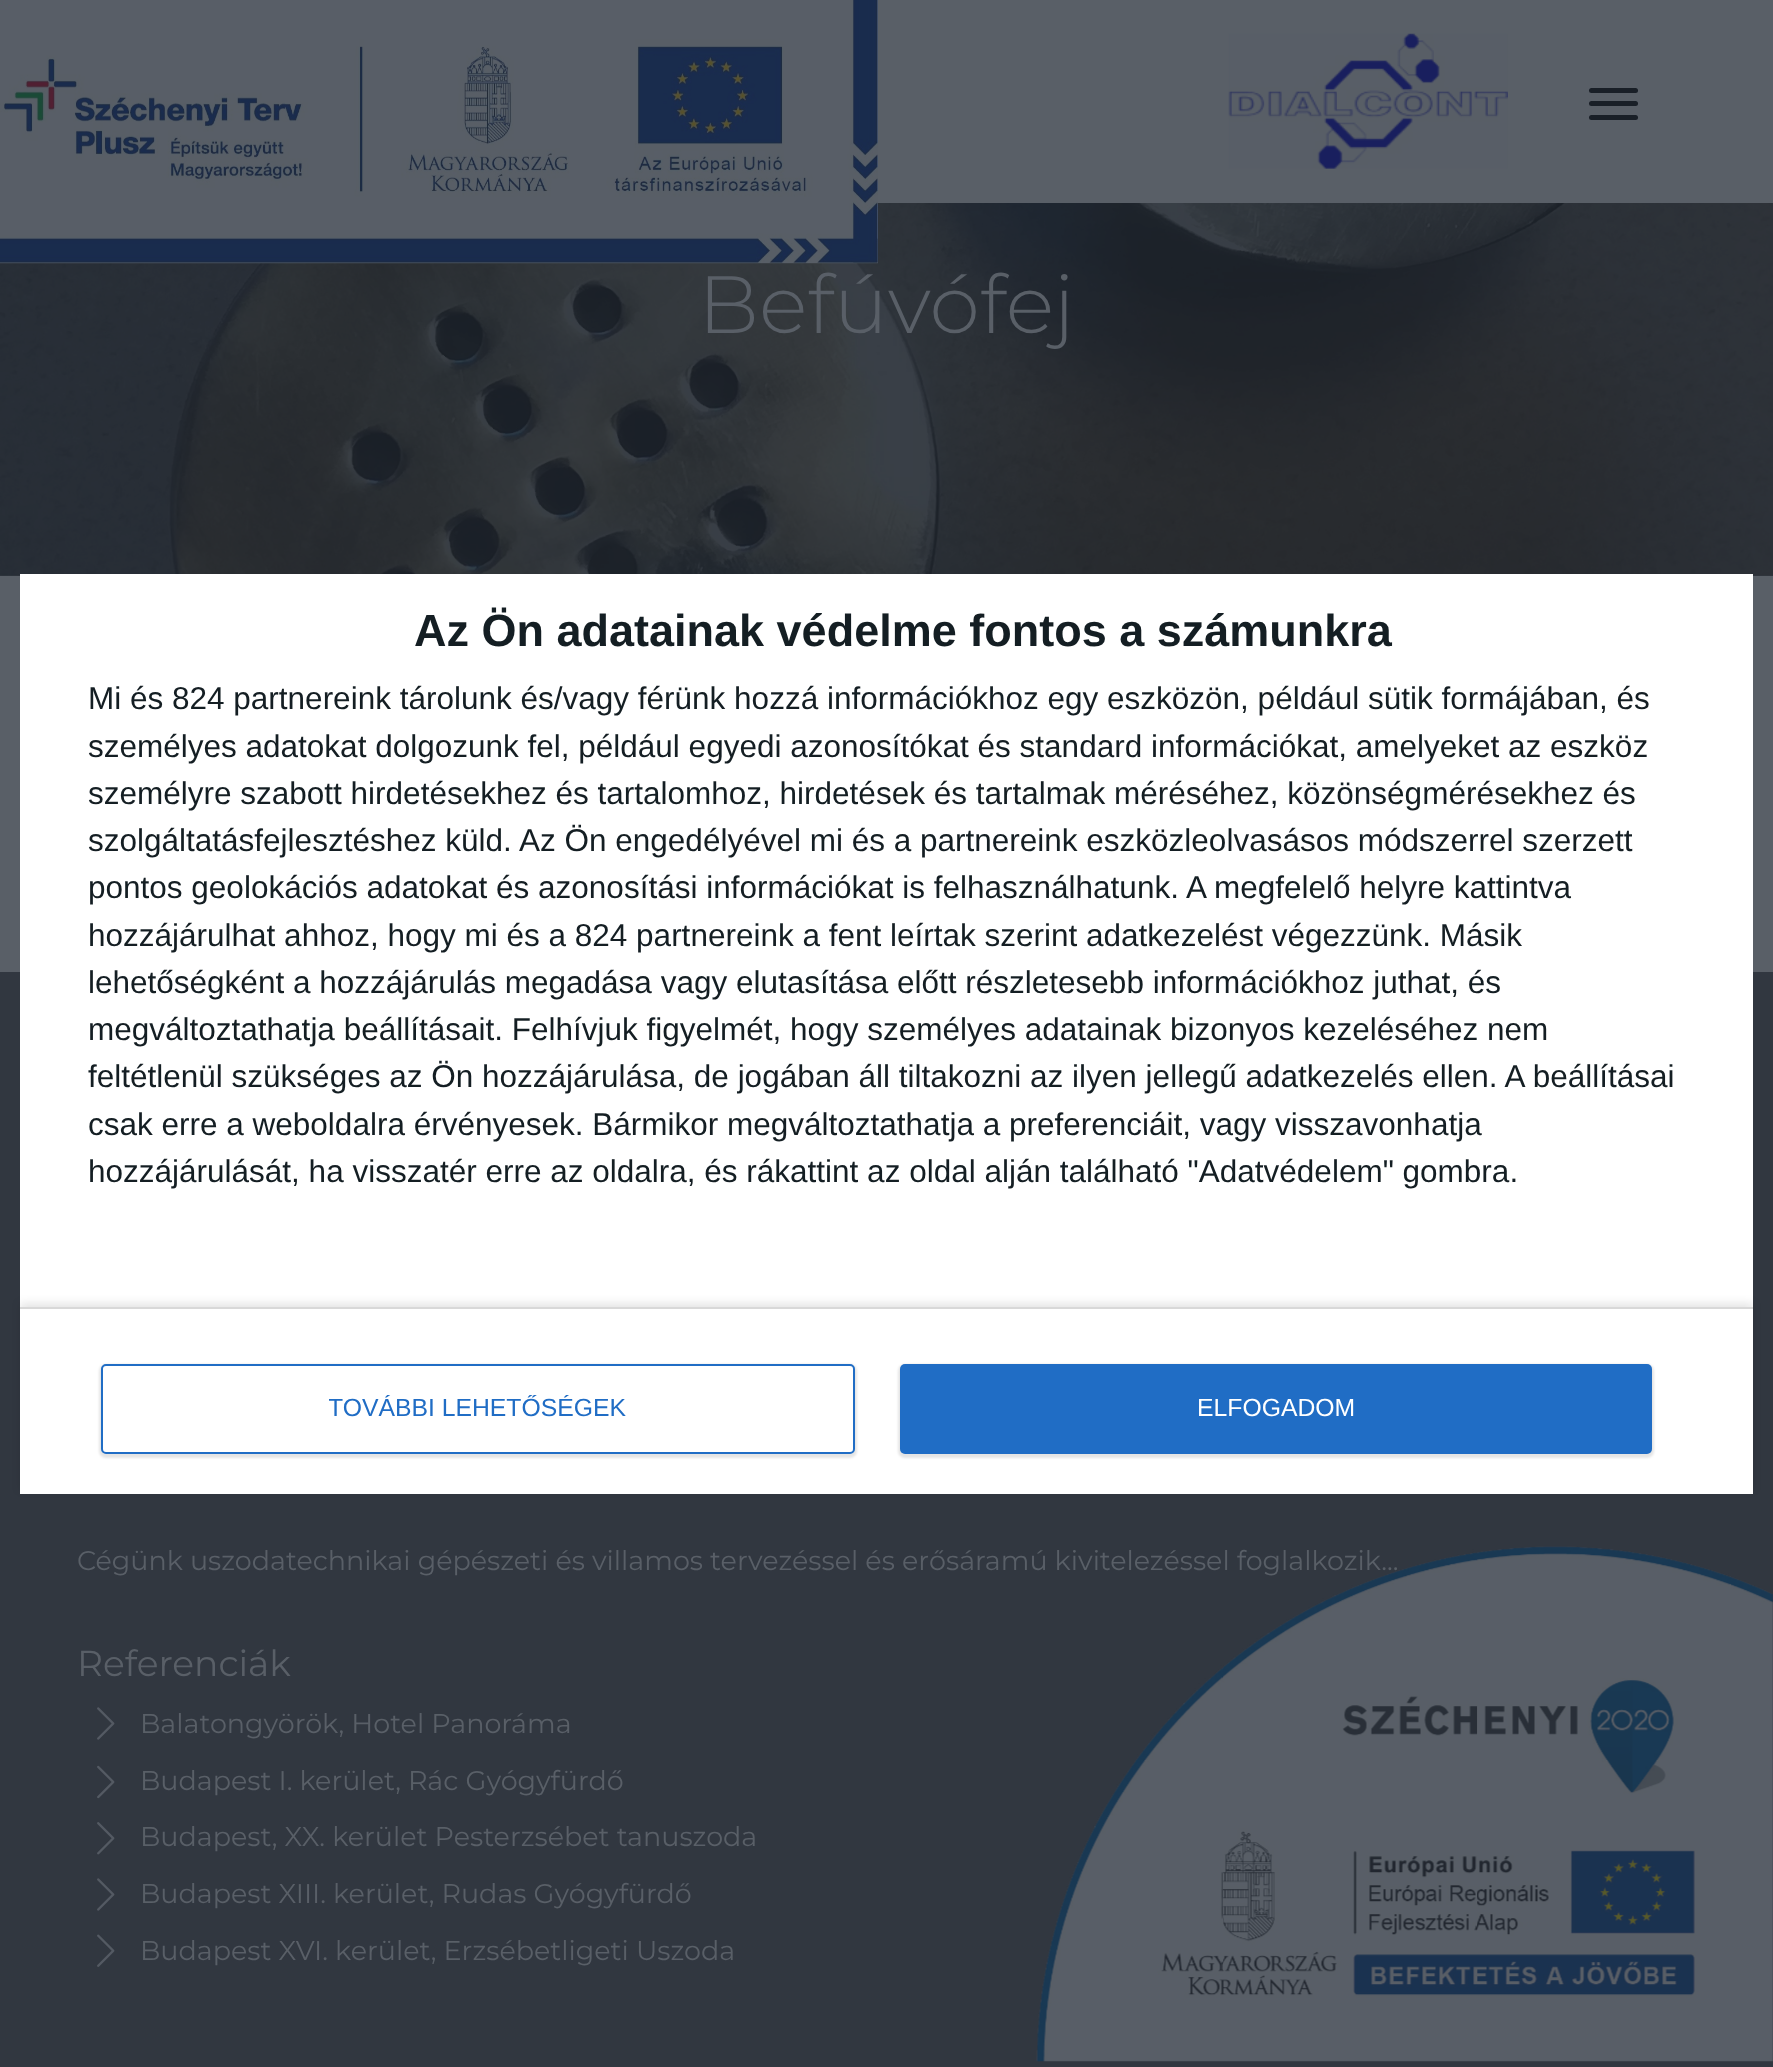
<svg xmlns="http://www.w3.org/2000/svg" width="1773" height="2067" viewBox="0 0 1773 2067">
  <defs>
    <clipPath id="clip1"><path d="M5 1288H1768V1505H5ZM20 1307H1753V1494H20Z" clip-rule="evenodd"/></clipPath>
    <clipPath id="clip2"><path d="M329 1395h297v25H329z"/></clipPath>
  </defs>
  <rect width="100%" height="100%" fill="#595f67"/>
  <path d="M0 575h1773v1H0z" fill="#323841"/>
  <image x="0" y="203" width="1773" height="373" href="img/3.png"/>
  <image x="0" y="0" width="878" height="264" href="img/1.png"/>
  <image x="1228" y="33" width="280" height="136" href="img/2.png"/>
  <rect x="1589" y="88" width="49" height="5" rx="2.5" fill="#191f27"/>
  <rect x="1589" y="101" width="49" height="5" rx="2.5" fill="#191f27"/>
  <rect x="1589" y="115" width="49" height="5" rx="2.5" fill="#191f27"/>
  <path d="M0 972h1773v1095H0z" fill="#313740"/>
  <path d="M20 574h1733v920H20z" fill="#fff"/>
  <g clip-path="url(#clip1)">
    <path d="M20 1303h1733v187H20z" fill="#0000001a" filter="blur(4.5px)"/>
  </g>
  <path d="M20 1307h1733v2H20z" fill="#d8d8d8"/>
  <rect x="99" y="1364" width="758" height="94" rx="7" fill="#0000001a" filter="blur(1px)"/>
  <rect x="102" y="1365" width="752" height="88" rx="4" fill="#fff" stroke="#206dc5" stroke-width="2"/>
  <rect x="898" y="1364" width="756" height="94" rx="7" fill="#0000001a" filter="blur(1px)"/>
  <rect x="900" y="1364" width="752" height="90" rx="5" fill="#206dc5"/>
  <image x="97" y="1707" width="18" height="33" href="img/4.png"/>
  <image x="97" y="1765" width="18" height="34" href="img/5.png"/>
  <image x="97" y="1822" width="18" height="33" href="img/6.png"/>
  <image x="97" y="1878" width="18" height="33" href="img/4.png"/>
  <image x="97" y="1934" width="18" height="33" href="img/7.png"/>
  <text x="698" y="333" font-family="Montserrat" font-size="81" font-weight="300" fill="#595f67">Befúvófej</text>
  <text x="414" y="646" font-family="Liberation Sans" font-size="45" font-weight="bold" fill="#141e23">Az Ön adatainak védelme fontos a számunkra</text>
  <g font-family="Liberation Sans" font-size="31.5" fill="#141e23">
    <text x="88" y="709">Mi és 824 partnereink tárolunk és/vagy férünk hozzá információkhoz egy eszközön, például sütik formájában, és</text>
    <text x="88" y="757">személyes adatokat dolgozunk fel, például egyedi azonosítókat és standard információkat, amelyeket az eszköz</text>
    <text x="88" y="804">személyre szabott hirdetésekhez és tartalomhoz, hirdetések és tartalmak méréséhez, közönségmérésekhez és</text>
    <text x="88" y="851">szolgáltatásfejlesztéshez küld.</text>
    <text x="519" y="851">Az Ön engedélyével mi és a partnereink eszközleolvasásos módszerrel szerzett</text>
    <text x="88" y="898">pontos geolokációs adatokat és azonosítási információkat is felhasználhatunk. A megfelelő helyre kattintva</text>
    <text x="88" y="946">hozzájárulhat ahhoz, hogy mi és a 824 partnereink a fent leírtak szerint adatkezelést végezzünk. Másik</text>
    <text x="88" y="993">lehetőségként a hozzájárulás megadása vagy elutasítása előtt részletesebb információkhoz juthat, és</text>
    <text x="88" y="1040">megváltoztathatja beállításait. Felhívjuk figyelmét, hogy személyes adatainak bizonyos kezeléséhez nem</text>
    <text x="88" y="1087">feltétlenül szükséges az Ön hozzájárulása, de jogában áll tiltakozni az ilyen jellegű adatkezelés ellen. A beállításai</text>
    <text x="88" y="1135">csak erre a weboldalra érvényesek. Bármikor megváltoztathatja a preferenciáit, vagy visszavonhatja</text>
    <text x="88" y="1182">hozzájárulását, ha visszatér erre az oldalra, és rákattint az oldal alján található "Adatvédelem" gombra.</text>
  </g>
  <g clip-path="url(#clip2)">
    <text x="328" y="1416" font-family="Liberation Sans" font-size="24.75" fill="#206dc5">TOVÁBBI LEHETŐSÉGEK</text>
  </g>
  <text x="1197" y="1416" font-family="Liberation Sans" font-size="24.75" fill="#fff">ELFOGADOM</text>
  <text x="77" y="1570" font-family="Montserrat" font-size="27" fill="#595f67">Cégünk uszodatechnikai gépészeti és villamos tervezéssel és erősáramú kivitelezéssel foglalkozik...</text>
  <text x="77" y="1676" font-family="Montserrat" font-size="36" fill="#595f67">Referenciák</text>
  <g font-family="Montserrat" font-size="27" fill="#595f67">
    <text x="140" y="1733">Balatongyörök, Hotel Panoráma</text>
    <text x="140" y="1790">Budapest I. kerület, Rác Gyógyfürdő</text>
    <text x="140" y="1846">Budapest, XX. kerület Pesterzsébet tanuszoda</text>
    <text x="140" y="1903">Budapest XIII. kerület, Rudas Gyógyfürdő</text>
    <text x="140" y="1960">Budapest XVI. kerület, Erzsébetligeti Uszoda</text>
  </g>
  <image x="1036" y="1546" width="737" height="516" href="img/8.png"/>
</svg>
